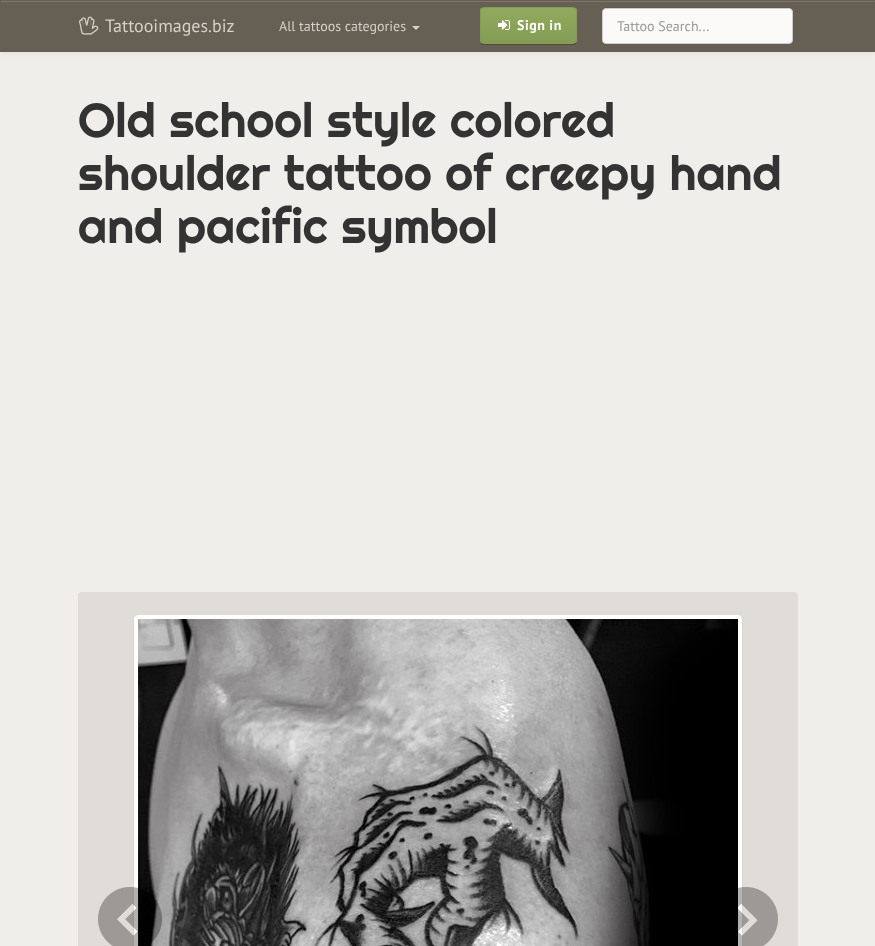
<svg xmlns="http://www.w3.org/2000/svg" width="875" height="946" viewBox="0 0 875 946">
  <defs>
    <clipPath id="clip1"><rect x="480" y="7" width="97" height="37" rx="4"/></clipPath>
    <linearGradient id="g1" gradientUnits="userSpaceOnUse" x1="529" y1="8" x2="529" y2="43"><stop offset="0" stop-color="#91aa5f"/><stop offset="1" stop-color="#849c53"/></linearGradient>
  </defs>
  <rect width="100%" height="100%" fill="#f0eeeb"/>
  <path d="M0 1h875v52H0z" fill="#00000012" filter="blur(2.5px)"/>
  <path d="M0 0h875v52H0z" fill="#655f54"/>
  <path d="M1 1h873v1H1z" fill="#7c776e"/>
  <image x="79" y="16" width="20" height="19" href="img/1.png"/>
  <path d="M412 26H420L416 30Z" fill="#d4d1c6"/>
  <rect x="480" y="8" width="97" height="37" rx="4" fill="#00000033" filter="blur(0.5px)"/>
  <g clip-path="url(#clip1)">
    <path d="M480 8h97v35H480z" fill="url(#g1)"/>
  </g>
  <rect x="480.5" y="7.5" width="96" height="36" rx="3.5" fill="none" stroke="#849c53"/>
  <image x="498" y="20" width="12" height="10" href="img/2.png"/>
  <path d="M606 7C603 7 602 9 602 12C602 10 604 8 606 8H789C791 8 793 10 793 12C793 9 792 7 789 7Z" fill="#5f594f"/>
  <rect x="602.5" y="8.5" width="190" height="35" rx="3.5" fill="#fbfaf9" stroke="#ccc"/>
  <rect x="78" y="592" width="720" height="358" rx="4" fill="#e0dcd7"/>
  <rect x="134" y="616" width="608" height="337" rx="4" fill="#00000012" filter="blur(1px)"/>
  <rect x="134.5" y="615.5" width="607" height="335" rx="3.5" fill="#fff" stroke="#fff"/>
  <image x="138" y="619" width="600" height="327" href="img/3.png"/>
  <image x="98" y="887" width="64" height="59" href="img/4.png"/>
  <image x="738" y="887" width="40" height="59" href="img/5.png"/>
  <text x="105" y="32" font-family="PT Sans" font-size="18" fill="#d4d1c6">Tattooimages.biz</text>
  <text x="279" y="31" font-family="PT Sans" font-size="14" fill="#d4d1c6">All tattoos categories</text>
  <text x="517" y="30" font-family="PT Sans" font-size="14" font-weight="bold" letter-spacing="0.5" fill="#fff">Sign in</text>
  <text x="617" y="31" font-family="PT Sans" font-size="14" fill="#999">Tattoo Search...</text>
  <g font-family="Righteous" font-size="48" fill="#333">
    <text x="78" y="137">Old school style colored</text>
    <text x="78" y="190">shoulder tattoo of creepy hand</text>
    <text x="78" y="243">and pacific symbol</text>
  </g>
</svg>
